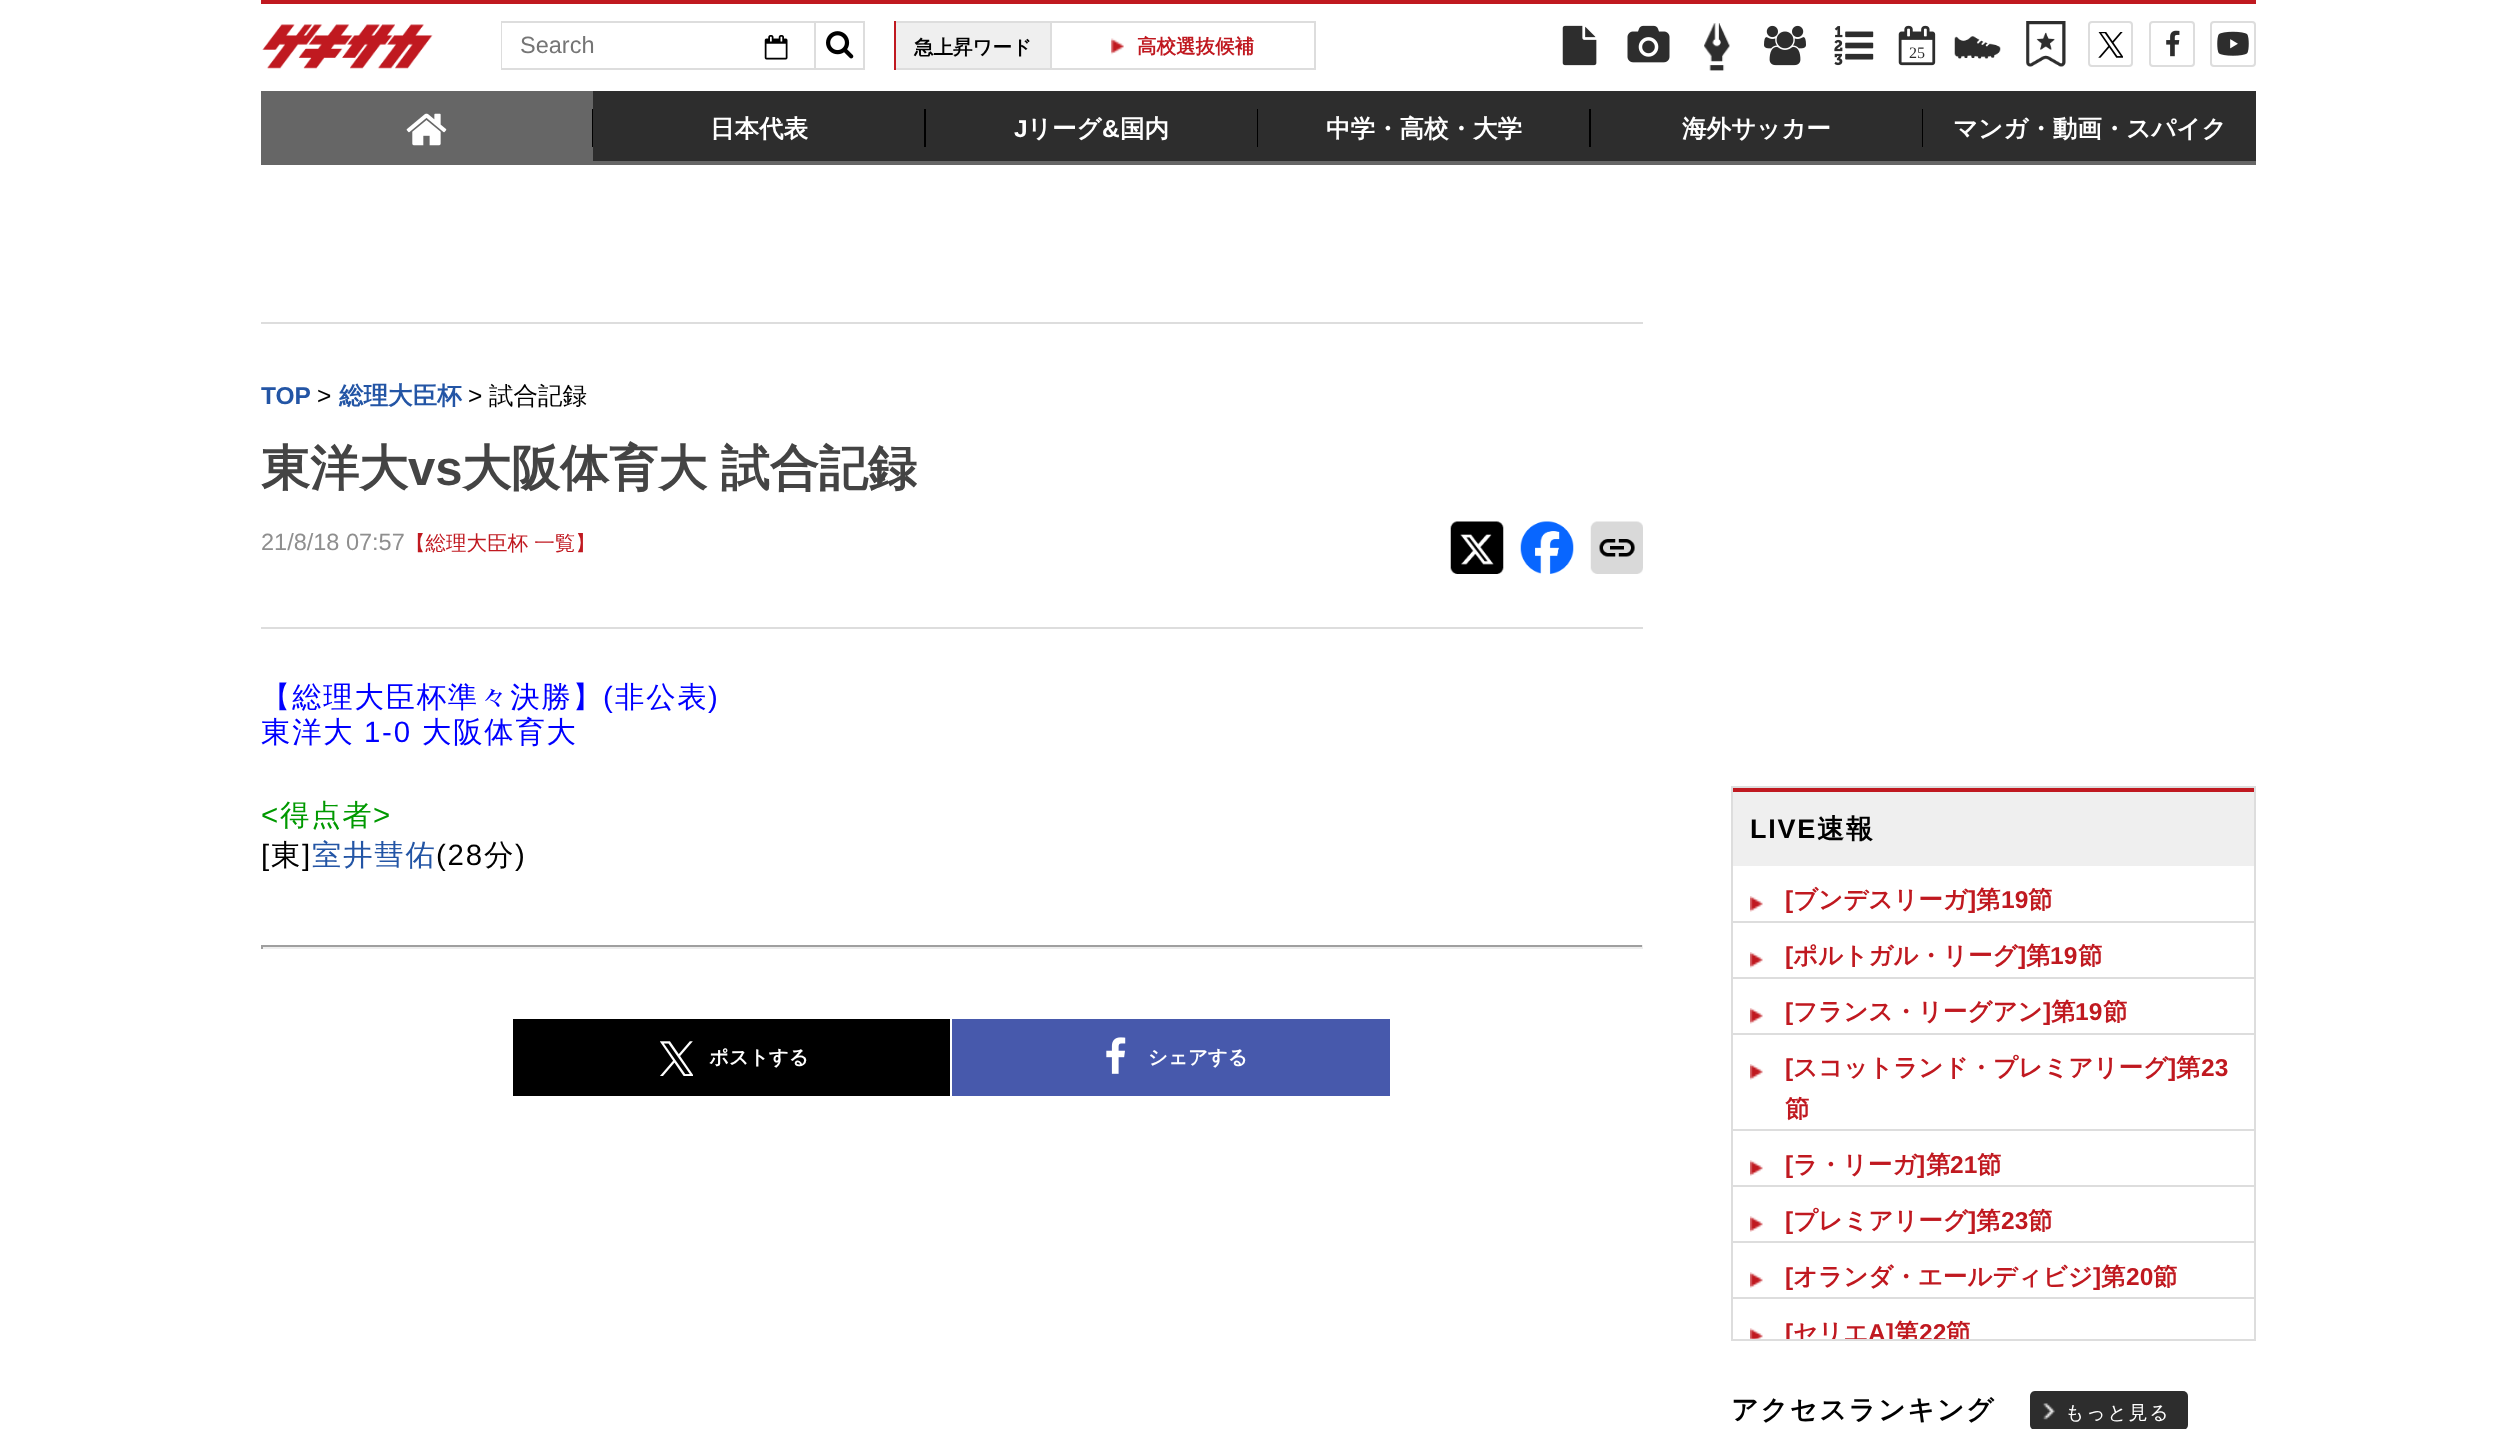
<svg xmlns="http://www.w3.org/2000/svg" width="2516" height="1429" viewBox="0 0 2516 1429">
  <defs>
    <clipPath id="clip1"><path d="M1733 866h521v473H1733z"/></clipPath>
  </defs>
  <rect width="100%" height="100%" fill="#fff"/>
  <path d="M261 0h1995v4H261z" fill="#c01920"/>
  <image x="262" y="24" width="171" height="45" href="img/1.png"/>
  <path d="M502 22h313v47H502z" fill="none" stroke="#ddd" stroke-width="2"/>
  <path d="M502 23h1v45H502z" fill="#fff"/>
  <image x="764" y="35" width="24" height="25" href="img/2.png"/>
  <path d="M816 21h49v2H816z" fill="#ddd"/>
  <path d="M863 21h2v49H863z" fill="#ddd"/>
  <path d="M816 68h49v2H816z" fill="#ddd"/>
  <image x="826" y="31" width="28" height="28" href="img/3.png"/>
  <path d="M896 23h154v45H896z" fill="#efefef"/>
  <path d="M894 21h156v2H894z" fill="#ddd"/>
  <path d="M894 68h156v2H894z" fill="#ddd"/>
  <path d="M894 21h2v49H894z" fill="#c01920"/>
  <path d="M1051 22h264v47H1051z" fill="none" stroke="#ddd" stroke-width="2"/>
  <image x="1111" y="38" width="13" height="17" href="img/4.png"/>
  <image x="1562" y="25" width="35" height="41" href="img/5.png"/>
  <image x="1627" y="25" width="43" height="38" href="img/6.png"/>
  <image x="1704" y="23" width="26" height="48" href="img/7.png"/>
  <image x="1764" y="25" width="42" height="41" href="img/8.png"/>
  <image x="1834" y="26" width="40" height="40" href="img/9.png"/>
  <image x="1898" y="25" width="38" height="41" href="img/10.png"/>
  <image x="1954" y="36" width="47" height="23" href="img/11.png"/>
  <image x="2026" y="21" width="40" height="46" href="img/12.png"/>
  <rect x="2089" y="22" width="43" height="44" rx="3" fill="none" stroke="#ddd" stroke-width="2"/>
  <image x="2098" y="32" width="25" height="26" href="img/13.png"/>
  <rect x="2150" y="22" width="44" height="44" rx="3" fill="none" stroke="#ddd" stroke-width="2"/>
  <image x="2166" y="30" width="14" height="27" href="img/14.png"/>
  <rect x="2211" y="22" width="44" height="44" rx="3" fill="none" stroke="#ddd" stroke-width="2"/>
  <image x="2217" y="31" width="32" height="25" href="img/15.png"/>
  <path d="M261 161h1995v4H261z" fill="#666"/>
  <path d="M261 91h332v70H261z" fill="#666"/>
  <path d="M592 109h1v38H592z" fill="#000"/>
  <image x="406" y="113" width="41" height="33" href="img/16.png"/>
  <path d="M593 91h1663v70H593z" fill="#2d2d2d"/>
  <path d="M924 109h2v38H924z" fill="#000"/>
  <path d="M1257 109h1v38H1257z" fill="#000"/>
  <path d="M1589 109h2v38H1589z" fill="#000"/>
  <path d="M1922 109h1v38H1922z" fill="#000"/>
  <path d="M261 322h1382v2H261z" fill="#ddd"/>
  <path d="M261 627h1382v2H261z" fill="#ddd"/>
  <image x="1450" y="521" width="54" height="53" href="img/17.png"/>
  <image x="1520" y="521" width="54" height="53" href="img/18.png"/>
  <image x="1590" y="521" width="53" height="53" href="img/19.png"/>
  <path d="M261 945h1382v2H261z" fill="#9f9f9f"/>
  <path d="M1642 945h1v4H1642z" fill="#eee"/>
  <path d="M261 947h1382v2H261z" fill="#eee"/>
  <path d="M261 945h2v4H261z" fill="#9f9f9f"/>
  <path d="M513 1019h437v77H513z" fill="#000"/>
  <image x="660" y="1041" width="33" height="35" href="img/20.png"/>
  <path d="M952 1019h438v77H952z" fill="#4759ac"/>
  <image x="1106" y="1037" width="20" height="37" href="img/21.png"/>
  <path d="M1732 787h523v553H1732z" fill="none" stroke="#ddd" stroke-width="2"/>
  <path d="M1733 792h521v74H1733z" fill="#efefef"/>
  <path d="M1733 788h521v4H1733z" fill="#c01920"/>
  <image x="1750" y="896" width="13" height="16" href="img/22.png"/>
  <path d="M1733 921h521v2H1733z" fill="#ddd"/>
  <image x="1750" y="952" width="13" height="16" href="img/22.png"/>
  <path d="M1733 977h521v2H1733z" fill="#ddd"/>
  <image x="1750" y="1008" width="13" height="16" href="img/22.png"/>
  <path d="M1733 1033h521v2H1733z" fill="#ddd"/>
  <image x="1750" y="1064" width="13" height="16" href="img/22.png"/>
  <path d="M1733 1129h521v2H1733z" fill="#ddd"/>
  <image x="1750" y="1160" width="13" height="16" href="img/23.png"/>
  <path d="M1733 1185h521v2H1733z" fill="#ddd"/>
  <image x="1750" y="1216" width="13" height="16" href="img/23.png"/>
  <path d="M1733 1241h521v2H1733z" fill="#ddd"/>
  <image x="1750" y="1272" width="13" height="16" href="img/23.png"/>
  <path d="M1733 1297h521v2H1733z" fill="#ddd"/>
  <image x="1750" y="1328" width="13" height="11" href="img/24.png"/>
  <rect x="2030" y="1391" width="158" height="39" rx="5" fill="#2d2d2d"/>
  <image x="2042" y="1403" width="13" height="17" href="img/25.png"/>
  <text x="520" y="53" font-family="Liberation Sans" font-size="23.5" fill="#757575">Search</text>
  <text x="914" y="54" font-family="WenQuanYi Zen Hei" font-size="19.5" font-weight="bold" fill="#000">急上昇ワード</text>
  <text x="1137" y="53" font-family="WenQuanYi Zen Hei" font-size="19.5" font-weight="bold" fill="#c01920">高校選抜候補</text>
  <text x="1909" y="58" font-family="Liberation Serif" font-size="16" fill="#2d2d2d">25</text>
  <text x="710" y="137" font-family="WenQuanYi Zen Hei" font-size="24.5" font-weight="bold" fill="#fff">日本代表</text>
  <text x="1014" y="137" font-family="Liberation Sans" font-size="24.5" font-weight="bold" fill="#fff">J</text>
  <text x="1027" y="137" font-family="WenQuanYi Zen Hei" font-size="24.5" font-weight="bold" fill="#fff">リーグ</text>
  <text x="1102" y="137" font-family="Liberation Sans" font-size="24.5" font-weight="bold" fill="#fff">&amp;</text>
  <g font-family="WenQuanYi Zen Hei" font-size="24.5" font-weight="bold" fill="#fff">
    <text x="1120" y="137">国内</text>
    <text x="1326" y="137">中学・高校・大学</text>
    <text x="1682" y="137">海外サッカー</text>
    <text x="1953" y="137">マンガ・動画・スパイク</text>
  </g>
  <text x="261" y="404" font-family="Liberation Sans" font-size="24.5" font-weight="bold" fill="#2355a5">TOP</text>
  <text x="317" y="404" font-family="Liberation Sans" font-size="24.5" fill="#000">&gt;</text>
  <text x="339" y="404" font-family="WenQuanYi Zen Hei" font-size="24.5" font-weight="bold" fill="#2355a5">総理大臣杯</text>
  <text x="468" y="404" font-family="Liberation Sans" font-size="24.5" fill="#000">&gt;</text>
  <text x="489" y="404" font-family="WenQuanYi Zen Hei" font-size="24.5" font-weight="500" fill="#000">試合記録</text>
  <text x="261" y="485" font-family="WenQuanYi Zen Hei" font-size="49" font-weight="bold" fill="#444">東洋大</text>
  <text x="408" y="485" font-family="Liberation Sans" font-size="49" font-weight="bold" fill="#444">vs</text>
  <text x="462" y="485" word-spacing="-1" font-family="WenQuanYi Zen Hei" font-size="49" font-weight="bold" fill="#444">大阪体育大 試合記録</text>
  <text x="261" y="550" font-family="Liberation Sans" font-size="23.5" fill="#8f8f8f">21/8/18 07:57</text>
  <text x="405" y="550" font-family="WenQuanYi Zen Hei" font-size="20.5" font-weight="500" fill="#c01920">【総理大臣杯 一覧】</text>
  <text x="261" y="707" font-family="WenQuanYi Zen Hei" font-size="29.4" font-weight="500" letter-spacing="1.75" fill="#00f">【総理大臣杯準々決勝】</text>
  <text x="603" y="707" font-family="Liberation Sans" font-size="29.4" letter-spacing="1.75" fill="#00f">(</text>
  <text x="615" y="707" font-family="WenQuanYi Zen Hei" font-size="29.4" font-weight="500" letter-spacing="1.75" fill="#00f">非公表</text>
  <text x="708" y="707" font-family="Liberation Sans" font-size="29.4" letter-spacing="1.75" fill="#00f">)</text>
  <text x="261" y="742" font-family="WenQuanYi Zen Hei" font-size="29.4" font-weight="500" letter-spacing="1.75" fill="#00f">東洋大</text>
  <text x="364" y="742" font-family="Liberation Sans" font-size="29.4" letter-spacing="1.75" fill="#00f">1-0</text>
  <text x="422" y="742" font-family="WenQuanYi Zen Hei" font-size="29.4" font-weight="500" letter-spacing="1.75" fill="#00f">大阪体育大</text>
  <text x="261" y="825" font-family="Liberation Sans" font-size="29.4" letter-spacing="1.75" fill="#090">&lt;</text>
  <text x="280" y="825" font-family="WenQuanYi Zen Hei" font-size="29.4" font-weight="500" letter-spacing="1.75" fill="#090">得点者</text>
  <text x="373" y="825" font-family="Liberation Sans" font-size="29.4" letter-spacing="1.75" fill="#090">&gt;</text>
  <text x="261" y="865" font-family="Liberation Sans" font-size="29.4" letter-spacing="1.75" fill="#000">[</text>
  <text x="271" y="865" font-family="WenQuanYi Zen Hei" font-size="29.4" font-weight="500" letter-spacing="1.75" fill="#000">東</text>
  <text x="302" y="865" font-family="Liberation Sans" font-size="29.4" letter-spacing="1.75" fill="#000">]</text>
  <text x="312" y="865" font-family="WenQuanYi Zen Hei" font-size="29.4" font-weight="500" letter-spacing="1.75" fill="#2355a5">室井彗佑</text>
  <text x="436" y="865" font-family="Liberation Sans" font-size="29.4" letter-spacing="1.75" fill="#000">(28</text>
  <text x="484" y="865" font-family="WenQuanYi Zen Hei" font-size="29.4" font-weight="500" letter-spacing="1.75" fill="#000">分</text>
  <text x="515" y="865" font-family="Liberation Sans" font-size="29.4" letter-spacing="1.75" fill="#000">)</text>
  <g font-family="WenQuanYi Zen Hei" font-size="19.5" font-weight="bold" fill="#fff">
    <text x="709" y="1064">ポストする</text>
    <text x="1148" y="1064">シェアする</text>
  </g>
  <text x="1750" y="838" font-family="Liberation Sans" font-size="27" font-weight="bold" letter-spacing="1.75" fill="#000">LIVE</text>
  <text x="1817" y="838" font-family="WenQuanYi Zen Hei" font-size="27" font-weight="bold" letter-spacing="1.75" fill="#000">速報</text>
  <text x="1785" y="908" font-family="Liberation Sans" font-size="24.5" font-weight="bold" fill="#c01920">[</text>
  <text x="1793" y="908" font-family="WenQuanYi Zen Hei" font-size="24.5" font-weight="bold" fill="#c01920">ブンデスリーガ</text>
  <text x="1968" y="908" font-family="Liberation Sans" font-size="24.5" font-weight="bold" fill="#c01920">]</text>
  <text x="1976" y="908" font-family="WenQuanYi Zen Hei" font-size="24.5" font-weight="bold" fill="#c01920">第</text>
  <text x="2001" y="908" font-family="Liberation Sans" font-size="24.5" font-weight="bold" fill="#c01920">19</text>
  <text x="2028" y="908" font-family="WenQuanYi Zen Hei" font-size="24.5" font-weight="bold" fill="#c01920">節</text>
  <text x="1785" y="964" font-family="Liberation Sans" font-size="24.5" font-weight="bold" fill="#c01920">[</text>
  <text x="1793" y="964" font-family="WenQuanYi Zen Hei" font-size="24.5" font-weight="bold" fill="#c01920">ポルトガル・リーグ</text>
  <text x="2018" y="964" font-family="Liberation Sans" font-size="24.5" font-weight="bold" fill="#c01920">]</text>
  <text x="2026" y="964" font-family="WenQuanYi Zen Hei" font-size="24.5" font-weight="bold" fill="#c01920">第</text>
  <text x="2050" y="964" font-family="Liberation Sans" font-size="24.5" font-weight="bold" fill="#c01920">19</text>
  <text x="2078" y="964" font-family="WenQuanYi Zen Hei" font-size="24.5" font-weight="bold" fill="#c01920">節</text>
  <text x="1785" y="1020" font-family="Liberation Sans" font-size="24.5" font-weight="bold" fill="#c01920">[</text>
  <text x="1793" y="1020" font-family="WenQuanYi Zen Hei" font-size="24.5" font-weight="bold" fill="#c01920">フランス・リーグアン</text>
  <text x="2043" y="1020" font-family="Liberation Sans" font-size="24.5" font-weight="bold" fill="#c01920">]</text>
  <text x="2051" y="1020" font-family="WenQuanYi Zen Hei" font-size="24.5" font-weight="bold" fill="#c01920">第</text>
  <text x="2075" y="1020" font-family="Liberation Sans" font-size="24.5" font-weight="bold" fill="#c01920">19</text>
  <text x="2103" y="1020" font-family="WenQuanYi Zen Hei" font-size="24.5" font-weight="bold" fill="#c01920">節</text>
  <text x="1785" y="1076" font-family="Liberation Sans" font-size="24.5" font-weight="bold" fill="#c01920">[</text>
  <text x="1793" y="1076" font-family="WenQuanYi Zen Hei" font-size="24.5" font-weight="bold" fill="#c01920">スコットランド・プレミアリーグ</text>
  <text x="2168" y="1076" font-family="Liberation Sans" font-size="24.5" font-weight="bold" fill="#c01920">]</text>
  <text x="2176" y="1076" font-family="WenQuanYi Zen Hei" font-size="24.5" font-weight="bold" fill="#c01920">第</text>
  <text x="2201" y="1076" font-family="Liberation Sans" font-size="24.5" font-weight="bold" fill="#c01920">23</text>
  <text x="1785" y="1117" font-family="WenQuanYi Zen Hei" font-size="24.5" font-weight="bold" fill="#c01920">節</text>
  <text x="1785" y="1173" font-family="Liberation Sans" font-size="24.5" font-weight="bold" fill="#c01920">[</text>
  <text x="1793" y="1173" font-family="WenQuanYi Zen Hei" font-size="24.5" font-weight="bold" fill="#c01920">ラ・リーガ</text>
  <text x="1917" y="1173" font-family="Liberation Sans" font-size="24.5" font-weight="bold" fill="#c01920">]</text>
  <text x="1926" y="1173" font-family="WenQuanYi Zen Hei" font-size="24.5" font-weight="bold" fill="#c01920">第</text>
  <text x="1950" y="1173" font-family="Liberation Sans" font-size="24.5" font-weight="bold" fill="#c01920">21</text>
  <text x="1977" y="1173" font-family="WenQuanYi Zen Hei" font-size="24.5" font-weight="bold" fill="#c01920">節</text>
  <text x="1785" y="1229" font-family="Liberation Sans" font-size="24.5" font-weight="bold" fill="#c01920">[</text>
  <text x="1793" y="1229" font-family="WenQuanYi Zen Hei" font-size="24.5" font-weight="bold" fill="#c01920">プレミアリーグ</text>
  <text x="1968" y="1229" font-family="Liberation Sans" font-size="24.5" font-weight="bold" fill="#c01920">]</text>
  <text x="1976" y="1229" font-family="WenQuanYi Zen Hei" font-size="24.5" font-weight="bold" fill="#c01920">第</text>
  <text x="2001" y="1229" font-family="Liberation Sans" font-size="24.5" font-weight="bold" fill="#c01920">23</text>
  <text x="2028" y="1229" font-family="WenQuanYi Zen Hei" font-size="24.5" font-weight="bold" fill="#c01920">節</text>
  <text x="1785" y="1285" font-family="Liberation Sans" font-size="24.5" font-weight="bold" fill="#c01920">[</text>
  <text x="1793" y="1285" font-family="WenQuanYi Zen Hei" font-size="24.5" font-weight="bold" fill="#c01920">オランダ・エールディビジ</text>
  <text x="2093" y="1285" font-family="Liberation Sans" font-size="24.5" font-weight="bold" fill="#c01920">]</text>
  <text x="2101" y="1285" font-family="WenQuanYi Zen Hei" font-size="24.5" font-weight="bold" fill="#c01920">第</text>
  <text x="2126" y="1285" font-family="Liberation Sans" font-size="24.5" font-weight="bold" fill="#c01920">20</text>
  <text x="2153" y="1285" font-family="WenQuanYi Zen Hei" font-size="24.5" font-weight="bold" fill="#c01920">節</text>
  <g clip-path="url(#clip1)">
    <text x="1785" y="1341" font-family="Liberation Sans" font-size="24.5" font-weight="bold" fill="#c01920">[</text>
    <text x="1793" y="1341" font-family="WenQuanYi Zen Hei" font-size="24.5" font-weight="bold" fill="#c01920">セリエ</text>
    <text x="1868" y="1341" font-family="Liberation Sans" font-size="24.5" font-weight="bold" fill="#c01920">A]</text>
    <text x="1894" y="1341" font-family="WenQuanYi Zen Hei" font-size="24.5" font-weight="bold" fill="#c01920">第</text>
    <text x="1919" y="1341" font-family="Liberation Sans" font-size="24.5" font-weight="bold" fill="#c01920">22</text>
    <text x="1946" y="1341" font-family="WenQuanYi Zen Hei" font-size="24.5" font-weight="bold" fill="#c01920">節</text>
  </g>
  <text x="1731" y="1419" font-family="WenQuanYi Zen Hei" font-size="27" font-weight="bold" letter-spacing="1.75" fill="#000">アクセスランキング</text>
  <text x="2065" y="1419" font-family="WenQuanYi Zen Hei" font-size="19" font-weight="500" letter-spacing="1.75" fill="#fff">もっと見る</text>
</svg>
